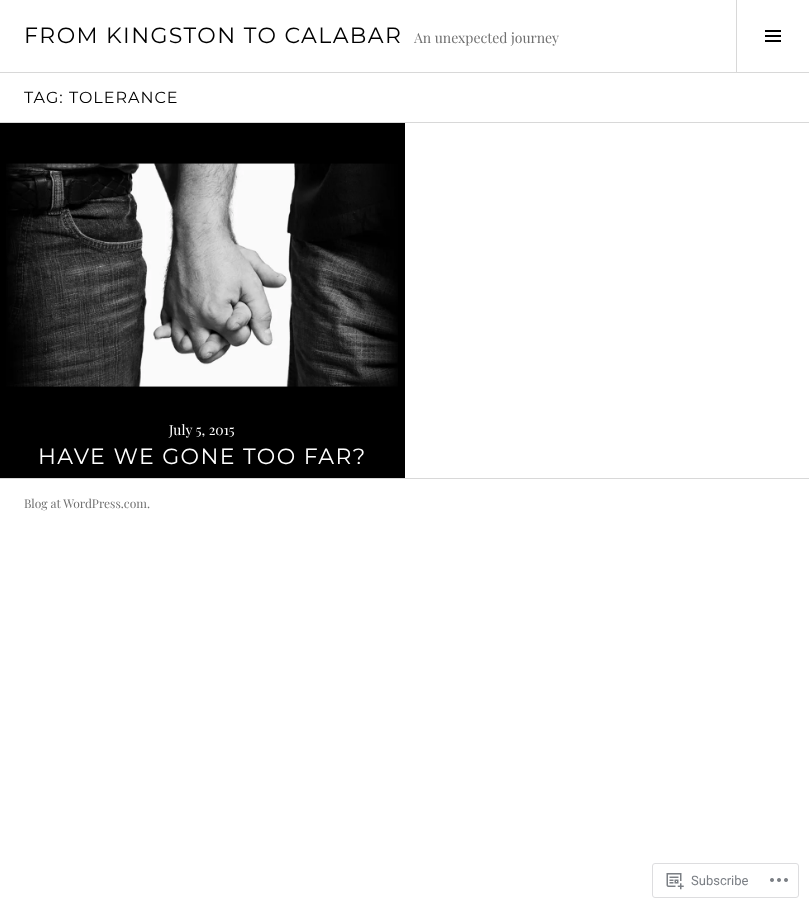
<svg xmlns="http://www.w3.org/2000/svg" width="809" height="908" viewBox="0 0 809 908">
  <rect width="100%" height="100%" fill="#fff"/>
  <path d="M0 72h809v1H0z" fill="#d8d8d8"/>
  <path d="M736 0h1v72H736z" fill="#d8d8d8"/>
  <image x="765" y="30" width="16" height="12" href="img/1.png"/>
  <path d="M0 122h809v1H0z" fill="#d8d8d8"/>
  <path d="M0 123h405v355H0z" fill="#000"/>
  <image x="6" y="163" width="392" height="224" href="img/2.png"/>
  <path d="M0 478h809v1H0z" fill="#d8d8d8"/>
  <rect x="652.5" y="863.5" width="146" height="34" rx="2.5" fill="none" stroke="#dddddf"/>
  <image x="666" y="873" width="18" height="17" href="img/3.png"/>
  <image x="770" y="878" width="18" height="4" href="img/4.png"/>
  <text x="24" y="43" font-family="Montserrat" font-size="22" letter-spacing="1.4" fill="#000">FROM KINGSTON TO CALABAR</text>
  <text x="414" y="43" font-family="Playfair Display" font-size="14" fill="#707070">An unexpected journey</text>
  <text x="24" y="103" font-family="Montserrat" font-size="16" letter-spacing="1" fill="#000">TAG: TOLERANCE</text>
  <text x="169" y="435" font-family="Playfair Display" font-size="14" fill="#fff">July 5, 2015</text>
  <text x="38" y="464" font-family="Montserrat" font-size="22" letter-spacing="1.4" fill="#fff">HAVE WE GONE TOO FAR?</text>
  <text x="24" y="508" font-family="Playfair Display" font-size="12" fill="#707070">Blog at WordPress.com.</text>
  <text x="691" y="885" font-family="Roboto" font-size="13" fill="#7b7f85">Subscribe</text>
</svg>
